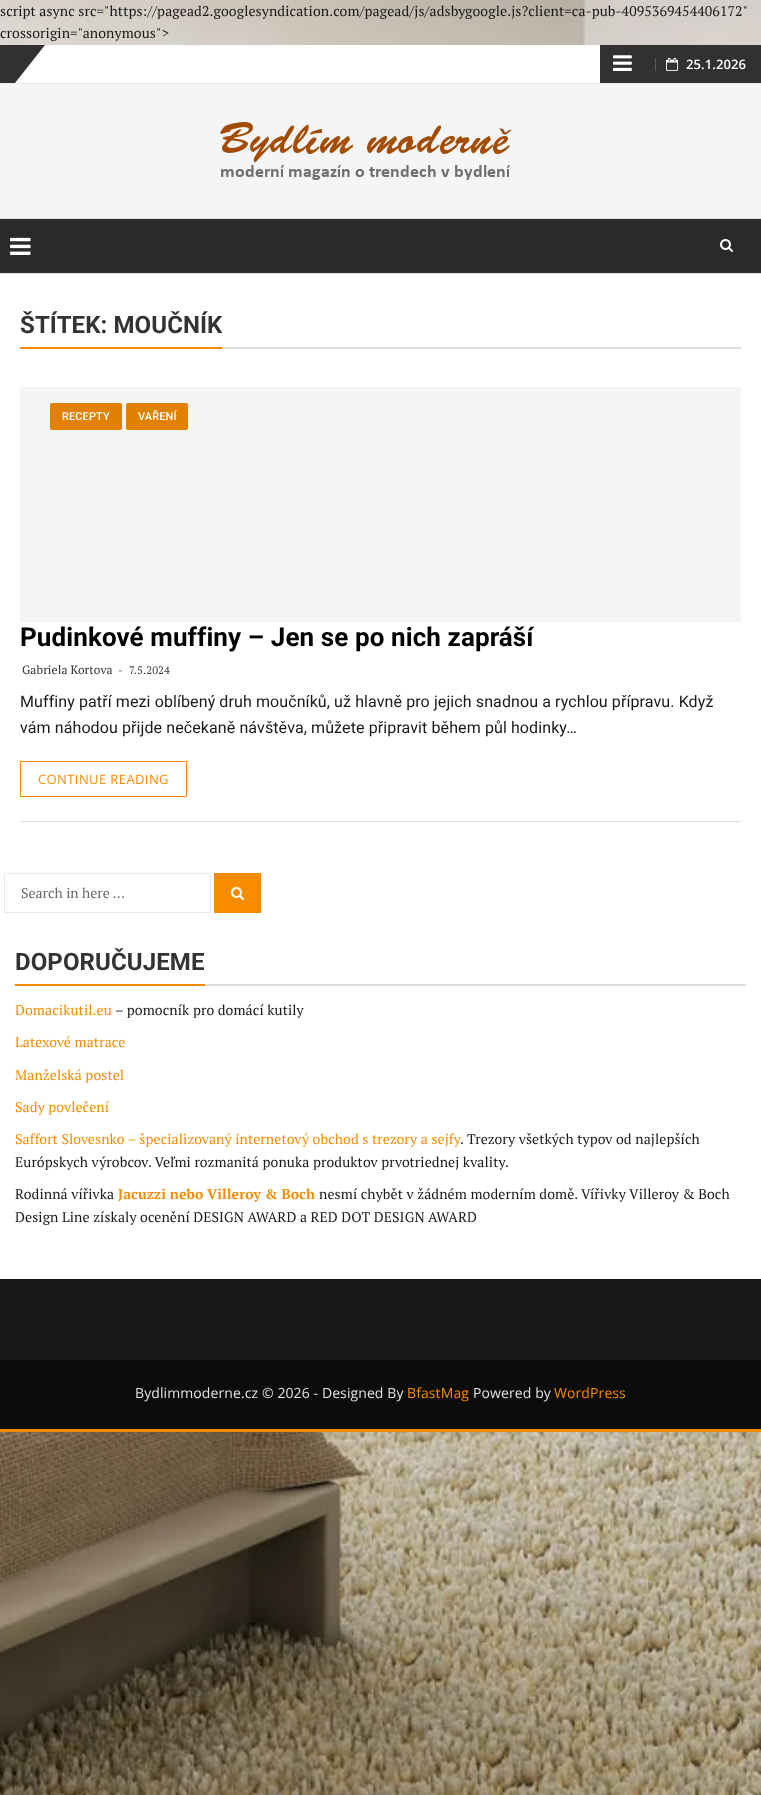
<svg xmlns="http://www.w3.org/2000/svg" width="761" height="1795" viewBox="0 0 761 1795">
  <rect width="100%" height="100%" fill="#fff"/>
  <image x="0" y="0" width="761" height="1795" href="img/1.png"/>
  <path d="M0 45h761v1234H0z" fill="#fff"/>
  <path d="M0 83h761v1H0z" fill="#eaeaea"/>
  <path d="M0 45H45L15 83H0Z" fill="#313131"/>
  <path d="M600 45h30v38H600z" fill="#313131"/>
  <path d="M761 83H600L630 45H761Z" fill="#313131"/>
  <image x="613" y="55" width="19" height="16" href="img/2.png"/>
  <path d="M655 58h1v13H655z" fill="#595959"/>
  <image x="666" y="57" width="13" height="14" href="img/3.png"/>
  <path d="M0 84h761v134H0z" fill="#f5f5f5"/>
  <image x="220" y="122" width="292" height="58" href="img/4.png"/>
  <path d="M0 219h761v54H0z" fill="#2a2a2a"/>
  <path d="M0 218h761v1H0z" fill="#ddd"/>
  <path d="M0 273h761v1H0z" fill="#ddd"/>
  <image x="10" y="237" width="21" height="18" href="img/5.png"/>
  <image x="720" y="239" width="13" height="13" href="img/6.png"/>
  <path d="M20 347h202v2H20z" fill="#f88c00"/>
  <path d="M222 347h519v2H222z" fill="#ddd"/>
  <path d="M20 387h721v235H20z" fill="#f4f4f4"/>
  <rect x="50" y="403" width="72" height="27" rx="2" fill="#e28000"/>
  <rect x="126" y="403" width="62" height="27" rx="2" fill="#e28000"/>
  <path d="M20.5 761.5h166v35H20.5z" fill="none" stroke="#f88c00"/>
  <path d="M20 821h721v1H20z" fill="#ddd"/>
  <path d="M4.5 873.5h206v39H4.5z" fill="none" stroke="#eaeaea"/>
  <path d="M214 873h47v40H214z" fill="#f88c00"/>
  <image x="231" y="887" width="13" height="13" href="img/7.png"/>
  <path d="M15 984h190v2H15z" fill="#f88c00"/>
  <path d="M205 984h541v2H205z" fill="#ddd"/>
  <path d="M0 1280h761v80H0z" fill="#181818"/>
  <path d="M0 1279h761v1H0z" fill="#161616"/>
  <path d="M0 1361h761v68H0z" fill="#0c0c0c"/>
  <path d="M0 1360h761v1H0z" fill="#0a0a0a"/>
  <path d="M0 1429h761v3H0z" fill="#f88c00"/>
  <g font-family="PT Serif" font-size="14" letter-spacing="0.1" fill="#191919">
    <text x="0" y="16">script async src="https://pagead2.googlesyndication.com/pagead/js/adsbygoogle.js?client=ca-pub-4095369454406172"</text>
    <text x="0" y="38">crossorigin="anonymous"&gt;</text>
  </g>
  <text x="686" y="69" font-family="Open Sans" font-size="13" font-weight="600" letter-spacing="0.1" fill="#fff">25.1.2026</text>
  <text x="20" y="333" font-family="Roboto" font-size="24" font-weight="bold" letter-spacing="0.1" fill="#333">ŠTÍTEK: MOUČNÍK</text>
  <g font-family="Roboto" font-size="11" font-weight="500" letter-spacing="0.1" fill="#fff">
    <text x="62" y="420">RECEPTY</text>
    <text x="138" y="420">VAŘENÍ</text>
  </g>
  <text x="20" y="646" font-family="Roboto" font-size="26" font-weight="bold" letter-spacing="0.1" fill="#000">Pudinkové muffiny – Jen se po nich zapráší</text>
  <text x="22" y="674" font-family="PT Serif" font-size="12" letter-spacing="0.1" fill="#333">Gabriela Kortova</text>
  <g font-family="PT Serif" font-size="11" letter-spacing="0.1" fill="#404040">
    <text x="118" y="674">-</text>
    <text x="129" y="674">7.5.2024</text>
  </g>
  <g font-family="Roboto" font-size="16" letter-spacing="0.1" fill="#191919">
    <text x="20" y="707">Muffiny patří mezi oblíbený druh moučníků, už hlavně pro jejich snadnou a rychlou přípravu. Když</text>
    <text x="20" y="733">vám náhodou přijde nečekaně návštěva, můžete připravit během půl hodinky…</text>
  </g>
  <text x="38" y="784" font-family="Open Sans" font-size="13" letter-spacing="0.4" fill="#f88c00">CONTINUE READING</text>
  <text x="21" y="898" font-family="PT Serif" font-size="14" fill="#6a6a6a">Search in here …</text>
  <text x="15" y="970" font-family="Roboto" font-size="24" font-weight="bold" letter-spacing="0.1" fill="#333">DOPORUČUJEME</text>
  <text x="15" y="1015" font-family="PT Serif" font-size="14" letter-spacing="0.1" fill="#f88c00">Domacikutil.eu</text>
  <text x="115" y="1015" font-family="PT Serif" font-size="14" letter-spacing="0.1" fill="#191919">– pomocník pro domácí kutily</text>
  <g font-family="PT Serif" font-size="14" letter-spacing="0.1" fill="#f88c00">
    <text x="15" y="1047">Latexové matrace</text>
    <text x="15" y="1080">Manželská postel</text>
    <text x="15" y="1112">Sady povlečení</text>
    <text x="15" y="1144">Saffort Slovesnko – špecializovaný internetový obchod s trezory a sejfy</text>
  </g>
  <g font-family="PT Serif" font-size="14" letter-spacing="0.1" fill="#191919">
    <text x="460" y="1144">. Trezory všetkých typov od najlepších</text>
    <text x="15" y="1167">Európskych výrobcov. Veľmi rozmanitá ponuka produktov prvotriednej kvality.</text>
    <text x="15" y="1199">Rodinná vířivka</text>
  </g>
  <text x="118" y="1199" font-family="PT Serif" font-size="14" font-weight="bold" letter-spacing="0.1" fill="#f88c00">Jacuzzi nebo Villeroy &amp; Boch</text>
  <g font-family="PT Serif" font-size="14" letter-spacing="0.1" fill="#191919">
    <text x="319" y="1199">nesmí chybět v žádném moderním domě. Vířivky Villeroy &amp; Boch</text>
    <text x="15" y="1222">Design Line získaly ocenění DESIGN AWARD a RED DOT DESIGN AWARD</text>
  </g>
  <text x="135" y="1398" font-family="Open Sans" font-size="14" letter-spacing="0.1" fill="#e2e2e2">Bydlimmoderne.cz © 2026 - Designed By</text>
  <text x="407" y="1398" font-family="Open Sans" font-size="14" letter-spacing="0.1" fill="#f88c00">BfastMag</text>
  <text x="473" y="1398" font-family="Open Sans" font-size="14" letter-spacing="0.1" fill="#e2e2e2">Powered by</text>
  <text x="554" y="1398" font-family="Open Sans" font-size="14" letter-spacing="0.1" fill="#f88c00">WordPress</text>
</svg>
